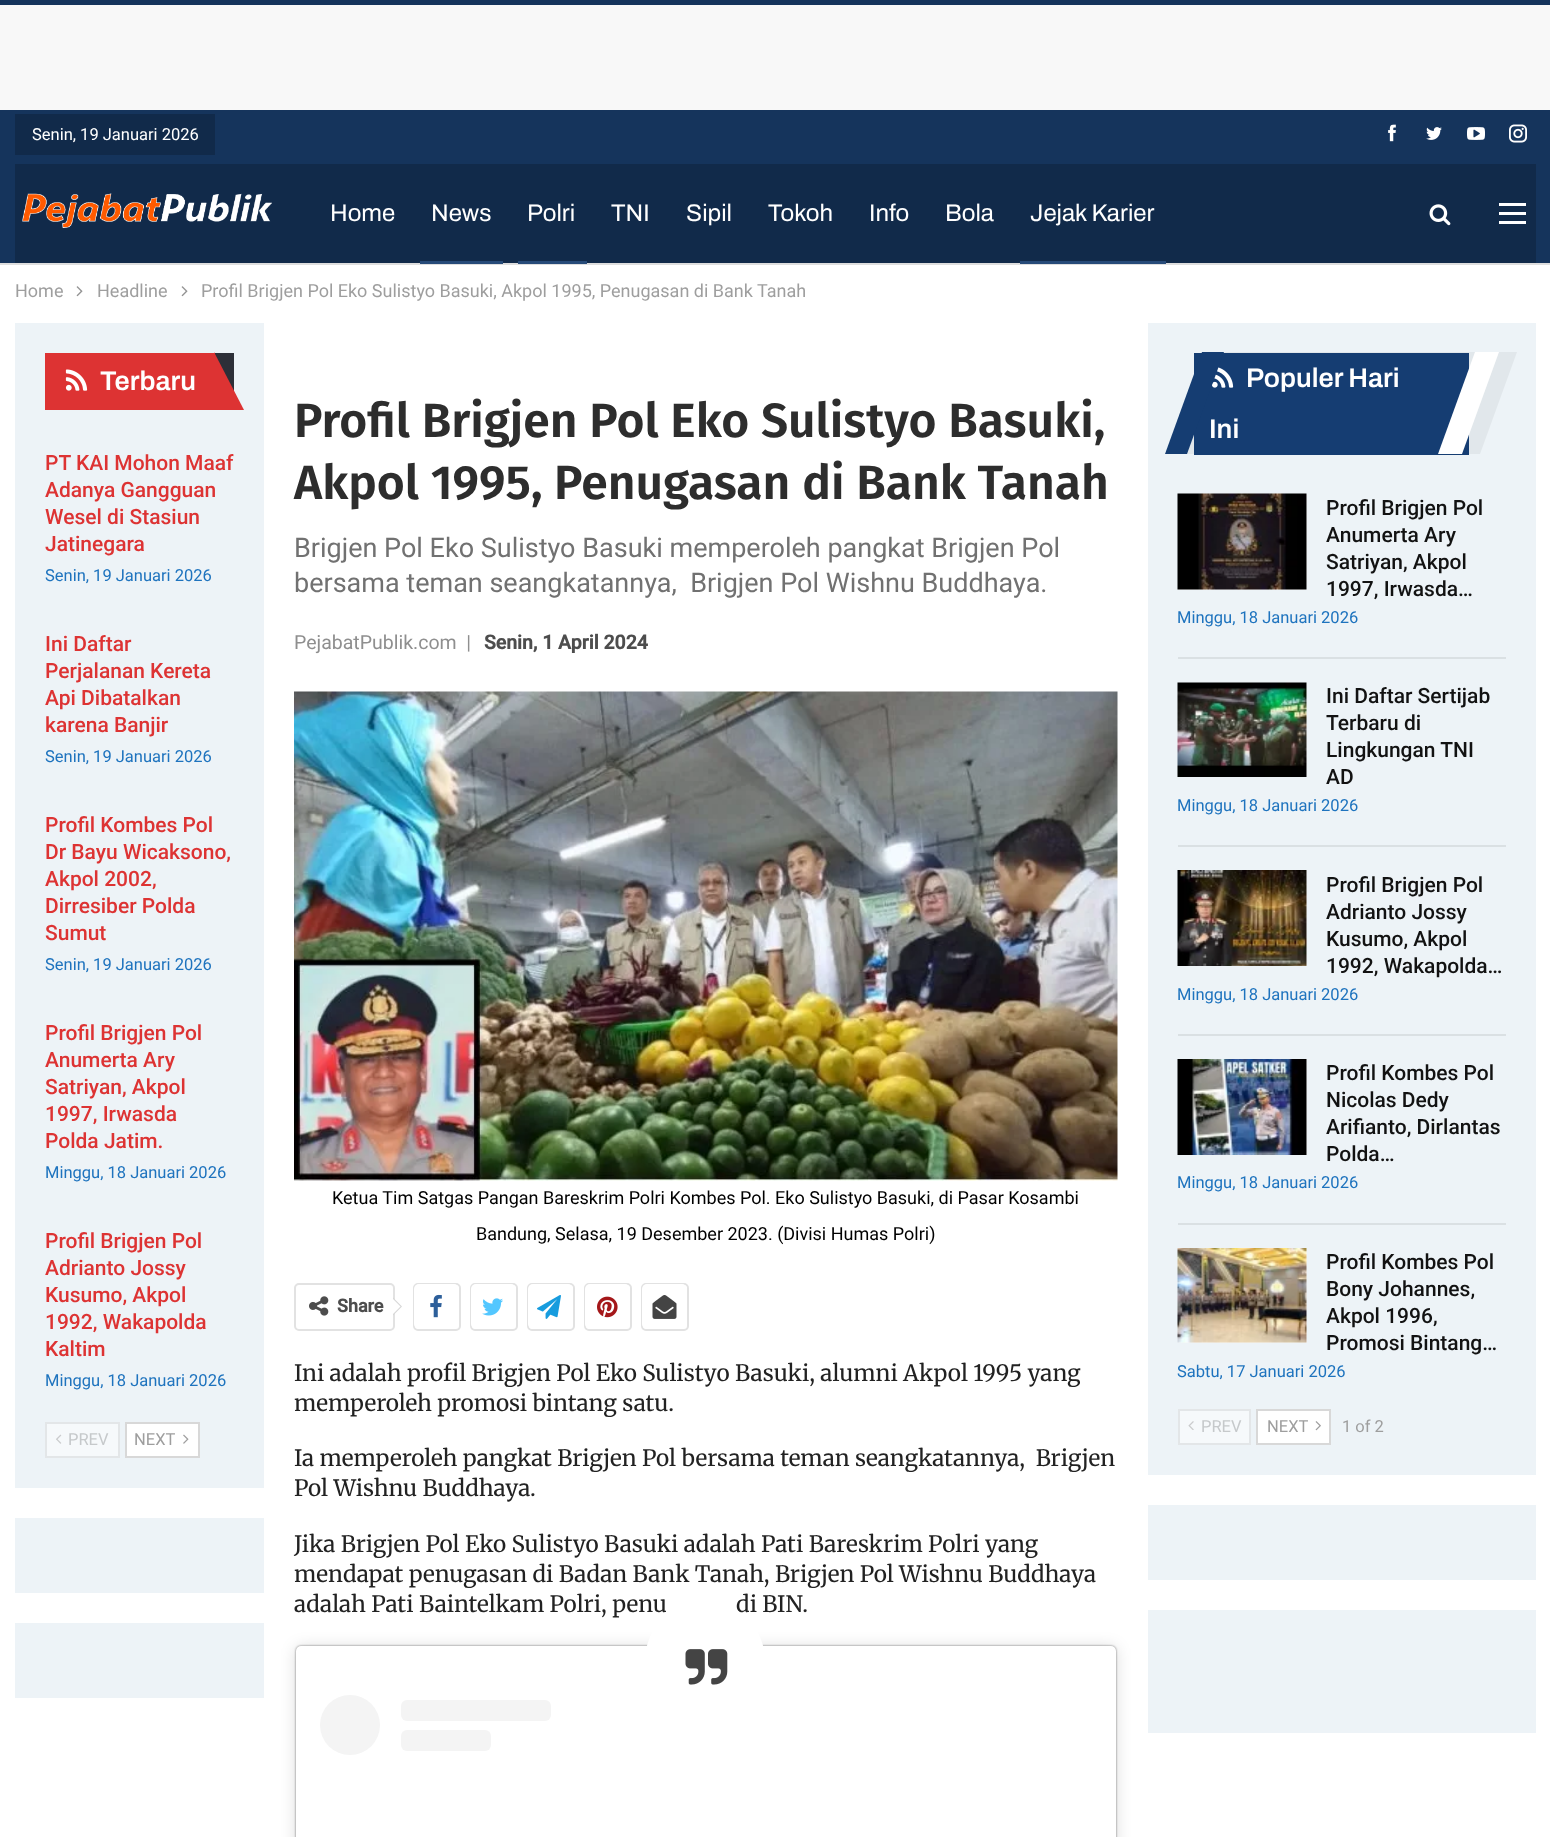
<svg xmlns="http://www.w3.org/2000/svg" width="1550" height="1837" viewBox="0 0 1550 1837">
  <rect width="100%" height="100%" fill="#fff"/>
  <path d="M0 0h1550v5H0z" fill="#15345c"/>
  <path d="M0 5h1550v105H0z" fill="#f8f8f8"/>
  <path d="M0 110h1550v153H0z" fill="#15345c"/>
  <path d="M0 263h1550v2H0z" fill="#dedede"/>
  <path d="M15 114h200v41H15z" fill="#112a4a"/>
  <image x="1388" y="124" width="8" height="18" href="img/1.png"/>
  <image x="1426" y="127" width="16" height="13" href="img/2.png"/>
  <image x="1467" y="127" width="18" height="13" href="img/3.png"/>
  <image x="1509" y="124" width="18" height="19" href="img/4.png"/>
  <path d="M15 164h1521v99H15z" fill="#112a4a"/>
  <image x="22" y="193" width="250" height="35" href="img/5.png"/>
  <path d="M420 261h83v3H420z" fill="#274b79"/>
  <path d="M518 261h69v3H518z" fill="#274b79"/>
  <path d="M1020 261h146v3H1020z" fill="#274b79"/>
  <image x="1429" y="204" width="22" height="22" href="img/6.png"/>
  <path d="M1499 212h27v3H1499z" fill="#fff"/>
  <path d="M1499 203h27v3H1499z" fill="#fff"/>
  <path d="M1499 221h27v3H1499z" fill="#fff"/>
  <image x="76" y="286" width="7" height="11" href="img/7.png"/>
  <image x="181" y="286" width="7" height="11" href="img/7.png"/>
  <path d="M15 323h249v1165H15z" fill="#edf3f7"/>
  <path d="M215 353h19v38H215z" fill="#2d2f38"/>
  <path d="M45 353h170v57H45z" fill="#d33"/>
  <image x="65" y="369" width="23" height="22" href="img/8.png"/>
  <path d="M244 410H214V352Z" fill="#d33"/>
  <path d="M46 1423h73v34H46z" fill="#f6f9fb" stroke="#e3e6e8" stroke-width="2"/>
  <image x="56" y="1434" width="6" height="10" href="img/9.png"/>
  <path d="M126 1423h73v34H126z" fill="#fff" stroke="#d8d8d8" stroke-width="2"/>
  <image x="183" y="1434" width="6" height="10" href="img/10.png"/>
  <path d="M15 1518h249v75H15z" fill="#edf3f7"/>
  <path d="M15 1623h249v75H15z" fill="#edf3f7"/>
  <image x="294" y="691" width="824" height="490" href="img/11.png"/>
  <rect x="295" y="1284" width="99" height="46" rx="4" fill="none" stroke="#e2e2e2" stroke-width="2"/>
  <image x="309" y="1296" width="20" height="20" href="img/12.png"/>
  <path d="M393 1315.5V1297.5L402 1306.5Z" fill="#d7d7d7"/>
  <path d="M393 1314V1299L400.5 1306.5Z" fill="#fff"/>
  <rect x="414" y="1284" width="46" height="46" rx="4" fill="none" stroke="#e2e2e2" stroke-width="2"/>
  <rect x="414" y="1284" width="45" height="45" rx="5" fill="#fff"/>
  <image x="430" y="1294" width="12" height="24" href="img/13.png"/>
  <rect x="471" y="1284" width="46" height="46" rx="4" fill="none" stroke="#e2e2e2" stroke-width="2"/>
  <rect x="471" y="1284" width="45" height="45" rx="5" fill="#fff"/>
  <image x="482" y="1298" width="21" height="18" href="img/14.png"/>
  <rect x="528" y="1284" width="46" height="46" rx="4" fill="none" stroke="#e2e2e2" stroke-width="2"/>
  <rect x="528" y="1284" width="45" height="45" rx="5" fill="#fff"/>
  <image x="537" y="1295" width="24" height="24" href="img/15.png"/>
  <rect x="585" y="1284" width="46" height="46" rx="4" fill="none" stroke="#e2e2e2" stroke-width="2"/>
  <rect x="585" y="1284" width="45" height="45" rx="5" fill="#fff"/>
  <image x="597" y="1296" width="21" height="22" href="img/16.png"/>
  <rect x="642" y="1284" width="46" height="46" rx="4" fill="none" stroke="#e2e2e2" stroke-width="2"/>
  <rect x="642" y="1284" width="45" height="45" rx="5" fill="#fff"/>
  <image x="652" y="1295" width="25" height="24" href="img/17.png"/>
  <rect x="296" y="1647" width="820" height="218" rx="5" fill="#00000026" filter="blur(7.5px)"/>
  <rect x="296" y="1646" width="820" height="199" rx="5" fill="#00000080" filter="blur(1px)"/>
  <rect x="296" y="1646" width="820" height="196" rx="5" fill="#fff"/>
  <circle cx="350" cy="1725" r="30" fill="#f4f4f4"/>
  <rect x="401" y="1700" width="150" height="21" rx="6" fill="#f4f4f4"/>
  <rect x="401" y="1730" width="90" height="21" rx="6" fill="#f4f4f4"/>
  <path d="M1148 323h388v1152H1148z" fill="#edf3f7"/>
  <path d="M1203 352H1517L1480 454H1166Z" fill="#e1e7eb"/>
  <path d="M1194 353h275v102H1194z" fill="#153d72"/>
  <path d="M1475 352H1499L1462 454H1438Z" fill="#fff"/>
  <image x="1212" y="367" width="22" height="21" href="img/19.png"/>
  <path d="M1178 657h328v2H1178z" fill="#dae0e3"/>
  <path d="M1178 494h129v96H1178z" fill="#f5f5f5"/>
  <image x="1177" y="493" width="130" height="97" href="img/20.png"/>
  <path d="M1178 845h328v2H1178z" fill="#dae0e3"/>
  <path d="M1306 683h1v94H1306z" fill="#f5f5f5"/>
  <image x="1177" y="682" width="130" height="95" href="img/21.png"/>
  <path d="M1178 1034h328v2H1178z" fill="#dae0e3"/>
  <path d="M1306 870h1v96H1306z" fill="#f5f5f5"/>
  <image x="1177" y="870" width="130" height="96" href="img/22.png"/>
  <path d="M1178 1223h328v2H1178z" fill="#dae0e3"/>
  <path d="M1306 1059h1v96H1306z" fill="#f5f5f5"/>
  <image x="1177" y="1059" width="130" height="96" href="img/23.png"/>
  <path d="M1178 1248h129v95H1178z" fill="#f5f5f5"/>
  <image x="1177" y="1248" width="130" height="95" href="img/24.png"/>
  <path d="M1179 1410h71v34H1179z" fill="#f6f9fb" stroke="#e3e6e8" stroke-width="2"/>
  <image x="1188" y="1421" width="6" height="9" href="img/25.png"/>
  <path d="M1257 1410h73v34H1257z" fill="#fff" stroke="#d8d8d8" stroke-width="2"/>
  <image x="1315" y="1421" width="6" height="10" href="img/26.png"/>
  <path d="M1148 1505h388v75H1148z" fill="#edf3f7"/>
  <path d="M1148 1610h388v123H1148z" fill="#edf3f7"/>
  <text x="32" y="140" font-family="Roboto" font-size="16.5" fill="#fff">Senin, 19 Januari 2026</text>
  <g font-family="Archivo" font-size="24" fill="#fff">
    <text x="330" y="221">Home</text>
    <text x="431" y="221">News</text>
    <text x="527" y="221">Polri</text>
    <text x="611" y="221">TNI</text>
    <text x="686" y="221">Sipil</text>
    <text x="768" y="221">Tokoh</text>
    <text x="869" y="221">Info</text>
    <text x="945" y="221">Bola</text>
    <text x="1030" y="221">Jejak Karier</text>
  </g>
  <g font-family="Roboto" font-size="18" fill="#9e9e9e">
    <text x="15" y="297">Home</text>
    <text x="97" y="297">Headline</text>
    <text x="201" y="297">Profil Brigjen Pol Eko Sulistyo Basuki, Akpol 1995, Penugasan di Bank Tanah</text>
  </g>
  <text x="100" y="390" font-family="Archivo" font-size="27" font-weight="600" fill="#fff">Terbaru</text>
  <g font-family="Roboto" font-size="21" font-weight="500" fill="#d33">
    <text x="45" y="470">PT KAI Mohon Maaf</text>
    <text x="45" y="497">Adanya Gangguan</text>
    <text x="45" y="524">Wesel di Stasiun</text>
    <text x="45" y="551">Jatinegara</text>
  </g>
  <text x="45" y="581" font-family="Roboto" font-size="16.5" fill="#1e73be">Senin, 19 Januari 2026</text>
  <g font-family="Roboto" font-size="21" font-weight="500" fill="#d33">
    <text x="45" y="651">Ini Daftar</text>
    <text x="45" y="678">Perjalanan Kereta</text>
    <text x="45" y="705">Api Dibatalkan</text>
    <text x="45" y="732">karena Banjir</text>
  </g>
  <text x="45" y="762" font-family="Roboto" font-size="16.5" fill="#1e73be">Senin, 19 Januari 2026</text>
  <g font-family="Roboto" font-size="21" font-weight="500" fill="#d33">
    <text x="45" y="832">Profil Kombes Pol</text>
    <text x="45" y="859">Dr Bayu Wicaksono,</text>
    <text x="45" y="886">Akpol 2002,</text>
    <text x="45" y="913">Dirresiber Polda</text>
    <text x="45" y="940">Sumut</text>
  </g>
  <text x="45" y="970" font-family="Roboto" font-size="16.5" fill="#1e73be">Senin, 19 Januari 2026</text>
  <g font-family="Roboto" font-size="21" font-weight="500" fill="#d33">
    <text x="45" y="1040">Profil Brigjen Pol</text>
    <text x="45" y="1067">Anumerta Ary</text>
    <text x="45" y="1094">Satriyan, Akpol</text>
    <text x="45" y="1121">1997, Irwasda</text>
    <text x="45" y="1148">Polda Jatim.</text>
  </g>
  <text x="45" y="1178" font-family="Roboto" font-size="16.5" fill="#1e73be">Minggu, 18 Januari 2026</text>
  <g font-family="Roboto" font-size="21" font-weight="500" fill="#d33">
    <text x="45" y="1248">Profil Brigjen Pol</text>
    <text x="45" y="1275">Adrianto Jossy</text>
    <text x="45" y="1302">Kusumo, Akpol</text>
    <text x="45" y="1329">1992, Wakapolda</text>
    <text x="45" y="1356">Kaltim</text>
  </g>
  <text x="45" y="1386" font-family="Roboto" font-size="16.5" fill="#1e73be">Minggu, 18 Januari 2026</text>
  <text x="68" y="1445" font-family="Roboto" font-size="16.5" fill="#c6c9cb">PREV</text>
  <text x="134" y="1445" font-family="Roboto" font-size="16.5" fill="#9e9e9e">NEXT</text>
  <g font-family="Fira Sans" font-size="48" font-weight="600" fill="#2d2d2d">
    <text x="294" y="437">Profil Brigjen Pol Eko Sulistyo Basuki,</text>
    <text x="294" y="499">Akpol 1995, Penugasan di Bank Tanah</text>
  </g>
  <g font-family="Roboto" font-size="27" fill="#717171">
    <text x="294" y="557">Brigjen Pol Eko Sulistyo Basuki memperoleh pangkat Brigjen Pol</text>
    <text x="294" y="592" xml:space="preserve">bersama teman seangkatannya,  Brigjen Pol Wishnu Buddhaya.</text>
  </g>
  <text x="294" y="649" font-family="Roboto" font-size="19.5" fill="#8f8f8f" xml:space="preserve">PejabatPublik.com  |</text>
  <text x="484" y="649" font-family="Roboto" font-size="19.5" font-weight="bold" fill="#4d4d4d">Senin, 1 April 2024</text>
  <g font-family="Roboto" font-size="18" fill="#000">
    <text x="332" y="1204">Ketua Tim Satgas Pangan Bareskrim Polri Kombes Pol. Eko Sulistyo Basuki, di Pasar Kosambi</text>
    <text x="476" y="1240">Bandung, Selasa, 19 Desember 2023. (Divisi Humas Polri)</text>
  </g>
  <text x="337" y="1312" font-family="Roboto" font-size="18" font-weight="bold" fill="#4d4d4d">Share</text>
  <g font-family="Merriweather" font-size="22.5" font-weight="300" fill="#222">
    <text x="294" y="1381">Ini adalah profil Brigjen Pol Eko Sulistyo Basuki, alumni Akpol 1995 yang</text>
    <text x="294" y="1411">memperoleh promosi bintang satu.</text>
    <text x="294" y="1466" xml:space="preserve">Ia memperoleh pangkat Brigjen Pol bersama teman seangkatannya,  Brigjen</text>
    <text x="294" y="1496">Pol Wishnu Buddhaya.</text>
    <text x="294" y="1552">Jika Brigjen Pol Eko Sulistyo Basuki adalah Pati Bareskrim Polri yang</text>
    <text x="294" y="1582">mendapat penugasan di Badan Bank Tanah, Brigjen Pol Wishnu Buddhaya</text>
    <text x="294" y="1612">adalah Pati Baintelkam Polri, penu</text>
    <text x="736" y="1612">di BIN.</text>
  </g>
  <circle cx="705" cy="1661" r="60" fill="#fff"/>
  <image x="685" y="1649" width="43" height="36" href="img/18.png"/>
  <g font-family="Archivo" font-size="27" font-weight="600" fill="#fff">
    <text x="1246" y="387">Populer Hari</text>
    <text x="1209" y="438">Ini</text>
  </g>
  <path d="M1202 352H1224L1187 454H1165Z" fill="#153d72"/>
  <g font-family="Roboto" font-size="21" font-weight="500" fill="#121212">
    <text x="1326" y="515">Profil Brigjen Pol</text>
    <text x="1326" y="542">Anumerta Ary</text>
    <text x="1326" y="569">Satriyan, Akpol</text>
    <text x="1326" y="596">1997, Irwasda…</text>
  </g>
  <text x="1177" y="623" font-family="Roboto" font-size="16.5" fill="#1e73be">Minggu, 18 Januari 2026</text>
  <g font-family="Roboto" font-size="21" font-weight="500" fill="#121212">
    <text x="1326" y="703">Ini Daftar Sertijab</text>
    <text x="1326" y="730">Terbaru di</text>
    <text x="1326" y="757">Lingkungan TNI</text>
    <text x="1326" y="784">AD</text>
  </g>
  <text x="1177" y="811" font-family="Roboto" font-size="16.5" fill="#1e73be">Minggu, 18 Januari 2026</text>
  <g font-family="Roboto" font-size="21" font-weight="500" fill="#121212">
    <text x="1326" y="892">Profil Brigjen Pol</text>
    <text x="1326" y="919">Adrianto Jossy</text>
    <text x="1326" y="946">Kusumo, Akpol</text>
    <text x="1326" y="973">1992, Wakapolda…</text>
  </g>
  <text x="1177" y="1000" font-family="Roboto" font-size="16.5" fill="#1e73be">Minggu, 18 Januari 2026</text>
  <g font-family="Roboto" font-size="21" font-weight="500" fill="#121212">
    <text x="1326" y="1080">Profil Kombes Pol</text>
    <text x="1326" y="1107">Nicolas Dedy</text>
    <text x="1326" y="1134">Arifianto, Dirlantas</text>
    <text x="1326" y="1161">Polda…</text>
  </g>
  <text x="1177" y="1188" font-family="Roboto" font-size="16.5" fill="#1e73be">Minggu, 18 Januari 2026</text>
  <g font-family="Roboto" font-size="21" font-weight="500" fill="#121212">
    <text x="1326" y="1269">Profil Kombes Pol</text>
    <text x="1326" y="1296">Bony Johannes,</text>
    <text x="1326" y="1323">Akpol 1996,</text>
    <text x="1326" y="1350">Promosi Bintang…</text>
  </g>
  <text x="1177" y="1377" font-family="Roboto" font-size="16.5" fill="#1e73be">Sabtu, 17 Januari 2026</text>
  <text x="1201" y="1432" font-family="Roboto" font-size="16.5" fill="#c6c9cb">PREV</text>
  <g font-family="Roboto" font-size="16.5" fill="#9e9e9e">
    <text x="1267" y="1432">NEXT</text>
    <text x="1342" y="1432">1 of 2</text>
  </g>
</svg>
